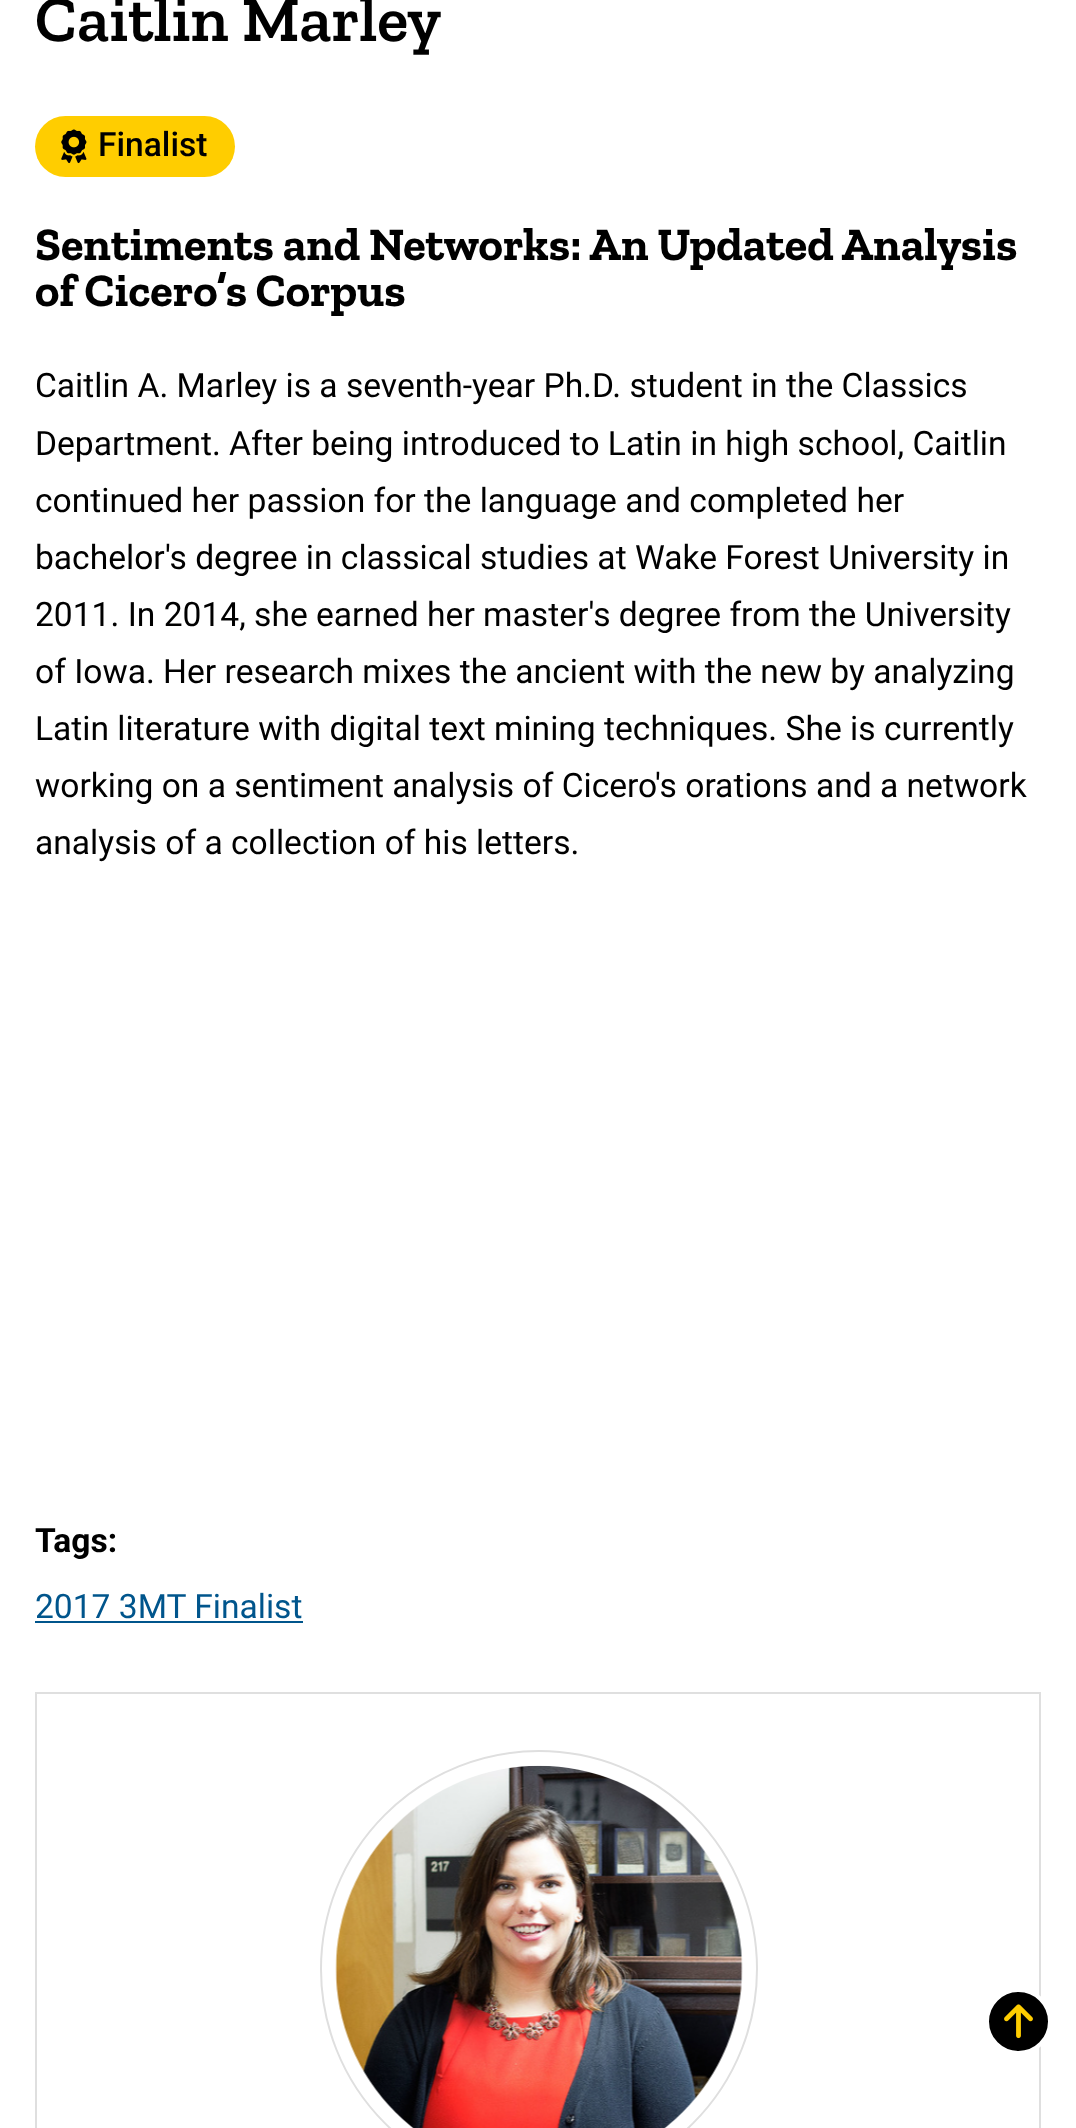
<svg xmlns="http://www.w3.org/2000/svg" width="1076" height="2128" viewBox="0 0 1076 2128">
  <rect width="100%" height="100%" fill="#fff"/>
  <rect x="35" y="116" width="200" height="61" rx="30.5" fill="#ffcd00"/>
  <image x="61" y="129" width="26" height="35" href="img/1.png"/>
  <path d="M35 1621h268v2H35z" fill="#00558c"/>
  <path d="M36 1693h1004v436H36z" fill="none" stroke="#dfdfdf" stroke-width="2"/>
  <circle cx="539" cy="1969" r="218" fill="none" stroke="#dfdfdf" stroke-width="2"/>
  <image x="335" y="1765" width="408" height="363" href="img/2.png"/>
  <circle cx="1018.5" cy="2021.5" r="31.5" fill="#000" stroke="#fff" stroke-width="4"/>
  <image x="1004" y="2004" width="29" height="35" href="img/3.png"/>
  <text x="35" y="41" font-family="Zilla Slab" font-size="65" font-weight="600" fill="#000">Caitlin Marley</text>
  <text x="98" y="156" font-family="Roboto" font-size="33.6" font-weight="500" fill="#000">Finalist</text>
  <g font-family="Zilla Slab" font-size="46.5" font-weight="bold" fill="#000">
    <text x="35" y="260">Sentiments and Networks: An Updated Analysis</text>
    <text x="35" y="306">of Cicero’s Corpus</text>
  </g>
  <g font-family="Roboto" font-size="33.6" fill="#000">
    <text x="35" y="397">Caitlin A. Marley is a seventh-year Ph.D. student in the Classics</text>
    <text x="35" y="455">Department. After being introduced to Latin in high school, Caitlin</text>
    <text x="35" y="512">continued her passion for the language and completed her</text>
    <text x="35" y="569">bachelor's degree in classical studies at Wake Forest University in</text>
    <text x="35" y="626">2011. In 2014, she earned her master's degree from the University</text>
    <text x="35" y="683">of Iowa. Her research mixes the ancient with the new by analyzing</text>
    <text x="35" y="740">Latin literature with digital text mining techniques. She is currently</text>
    <text x="35" y="797">working on a sentiment analysis of Cicero's orations and a network</text>
    <text x="35" y="854">analysis of a collection of his letters.</text>
  </g>
  <text x="35" y="1552" font-family="Roboto" font-size="33.6" font-weight="bold" fill="#000">Tags:</text>
  <text x="35" y="1618" font-family="Roboto" font-size="33.6" fill="#00558c">2017 3MT Finalist</text>
</svg>
